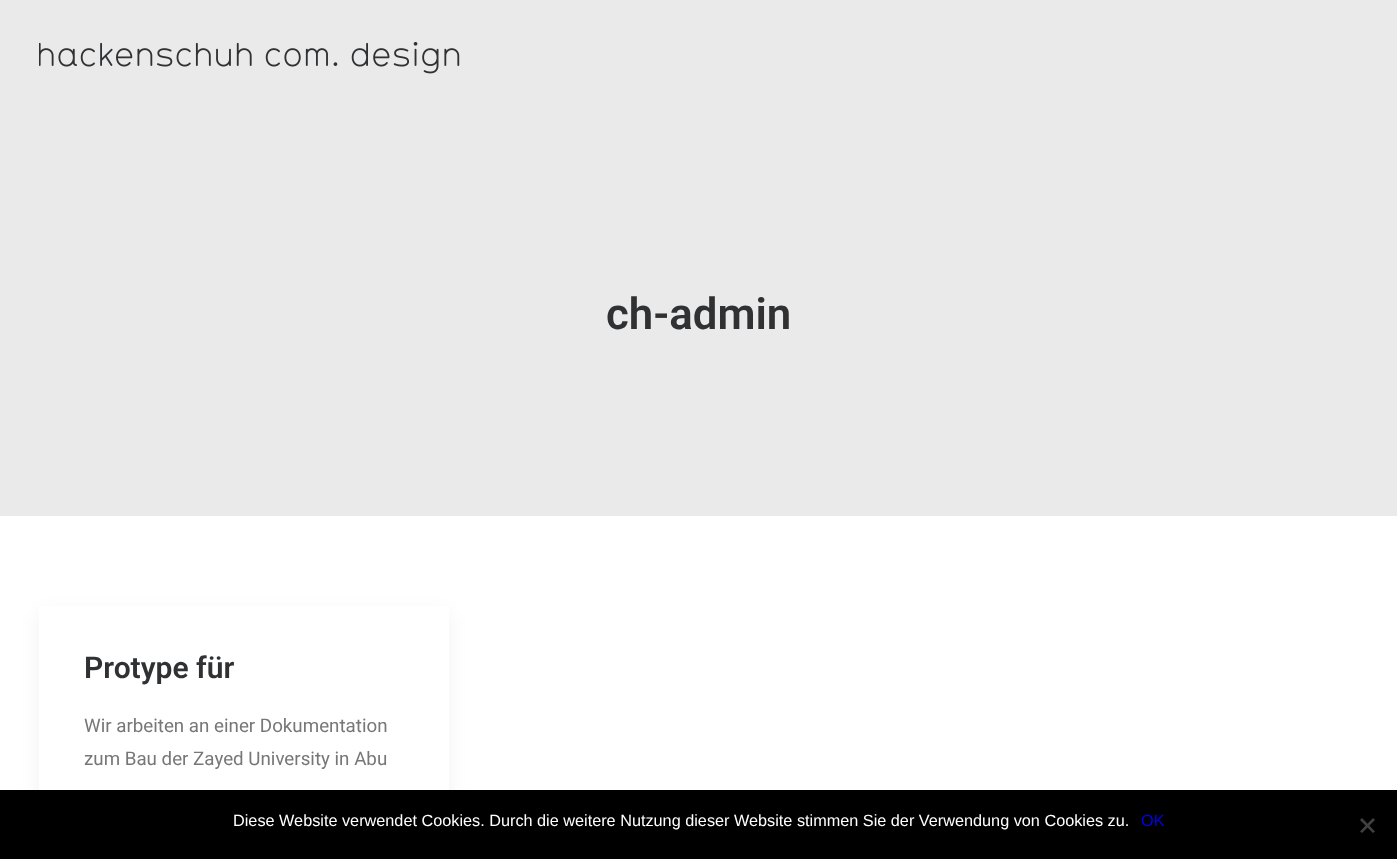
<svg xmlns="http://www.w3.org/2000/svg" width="1397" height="859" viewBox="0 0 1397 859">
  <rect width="100%" height="100%" fill="#eaeaea"/>
  <image x="39" y="42" width="421" height="32" href="img/1.png"/>
  <path d="M0 516h1397v274H0z" fill="#fff"/>
  <path d="M39 613h410v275H39z" fill="#0000000d" filter="blur(9.5px)"/>
  <path d="M39 606h410v184H39z" fill="#fff"/>
  <path d="M0 790h1397v69H0z" fill="#000"/>
  <path d="M1373 818L1375 820L1362 833L1360 831.5Z" fill="#404040"/>
  <path d="M1360 820L1362 818L1375 831.5L1373 833Z" fill="#404040"/>
  <text x="606" y="329" font-family="Roboto" font-size="43.75" font-weight="600" fill="#303133">ch-admin</text>
  <text x="84" y="678" font-family="Roboto" font-size="30" font-weight="600" fill="#303133">Protype für</text>
  <g font-family="Roboto" font-size="18.75" fill="#777">
    <text x="84" y="732">Wir arbeiten an einer Dokumentation</text>
    <text x="84" y="765">zum Bau der Zayed University in Abu</text>
  </g>
  <text x="233" y="826" font-family="Liberation Sans" font-size="16.25" fill="#fff">Diese Website verwendet Cookies. Durch die weitere Nutzung dieser Website stimmen Sie der Verwendung von Cookies zu.</text>
  <text x="1141" y="826" font-family="Liberation Sans" font-size="16.25" fill="#00e">OK</text>
</svg>
